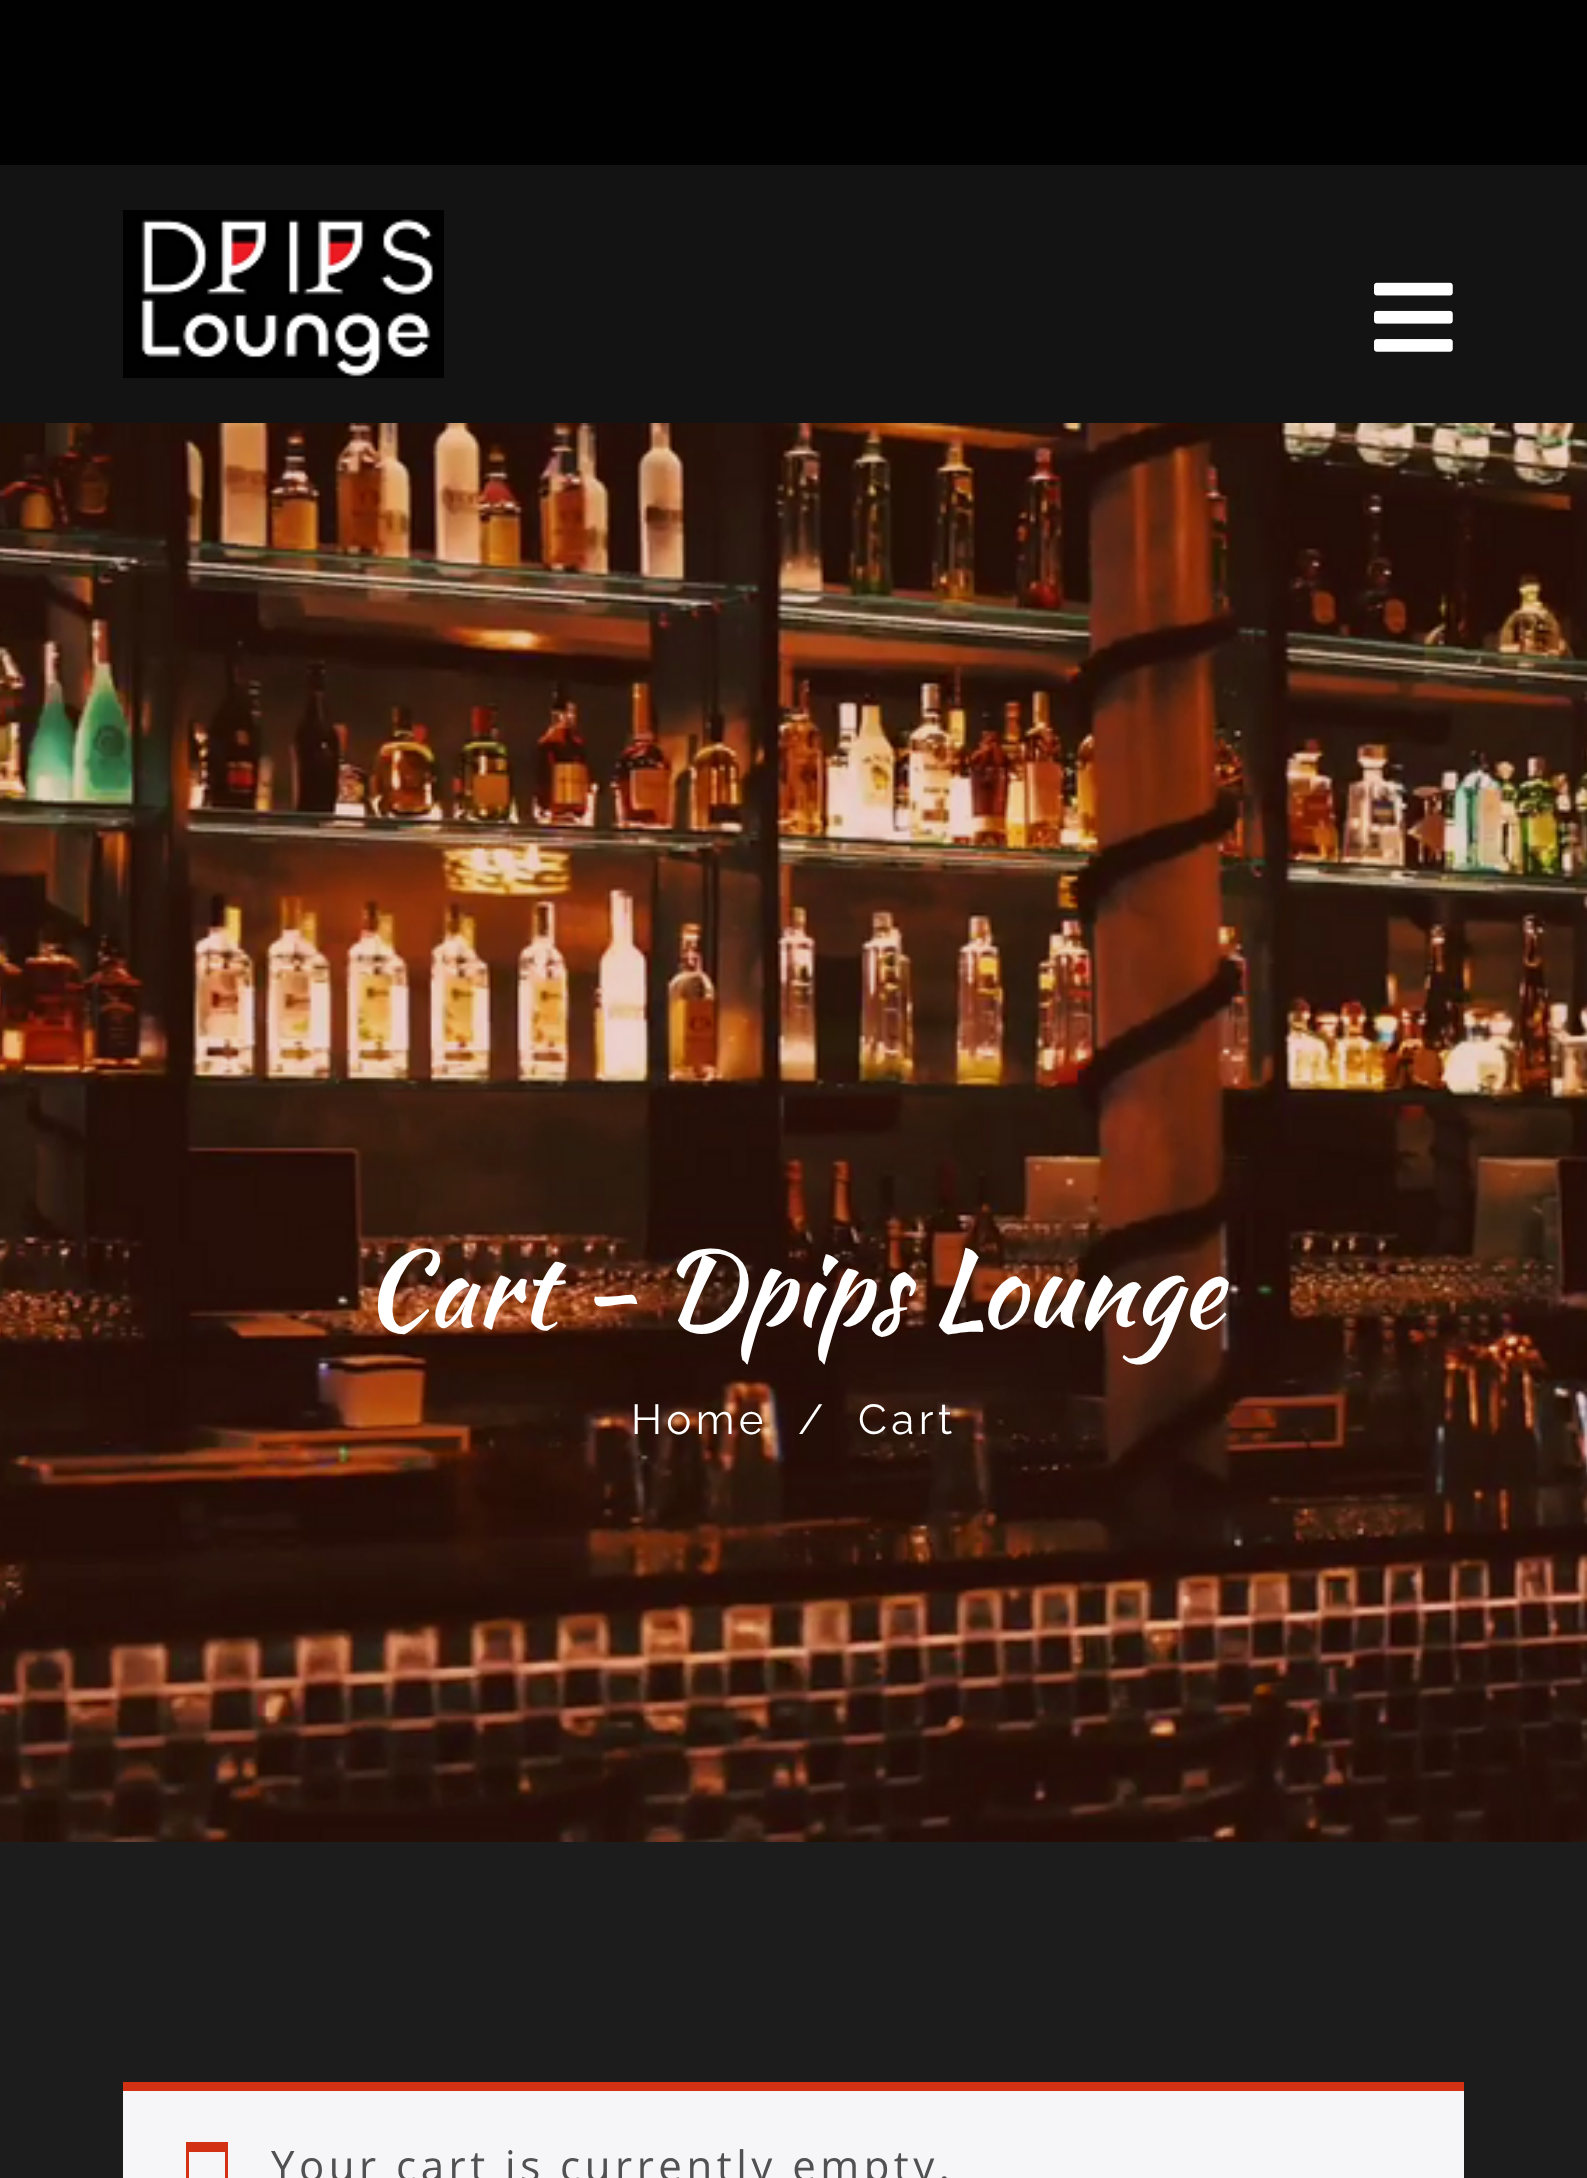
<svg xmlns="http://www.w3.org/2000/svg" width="1587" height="2178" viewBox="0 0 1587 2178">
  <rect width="100%" height="100%" fill="#1c1c1c"/>
  <path d="M0 0h1587v165H0z" fill="#010101"/>
  <path d="M0 165h1587v258H0z" fill="#131313"/>
  <image x="123" y="210" width="321" height="168" href="img/1.png"/>
  <image x="1374" y="282" width="79" height="70" href="img/2.png"/>
  <image x="0" y="423" width="1587" height="1419" href="img/3.png"/>
  <path d="M123 2091h1341v87H123z" fill="#f6f5f8"/>
  <path d="M123 2082h1341v9H123z" fill="#d23113"/>
  <path d="M225 2152H189V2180H225ZM228 2142V2174C228 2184 229 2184 218 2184H186V2142Z" fill="#d23113"/>
  <text x="363" y="1326" font-family="Kaushan Script" font-size="105" fill="#fff">Cart - Dpips Lounge</text>
  <g font-family="Raleway" font-size="42" letter-spacing="4.5" fill="#fff">
    <text x="631" y="1434">Home</text>
    <text x="798" y="1434">/</text>
    <text x="858" y="1434">Cart</text>
  </g>
  <text x="271" y="2181" font-family="Open Sans" font-size="42" letter-spacing="4.5" fill="#515151">Your cart is currently empty.</text>
</svg>
